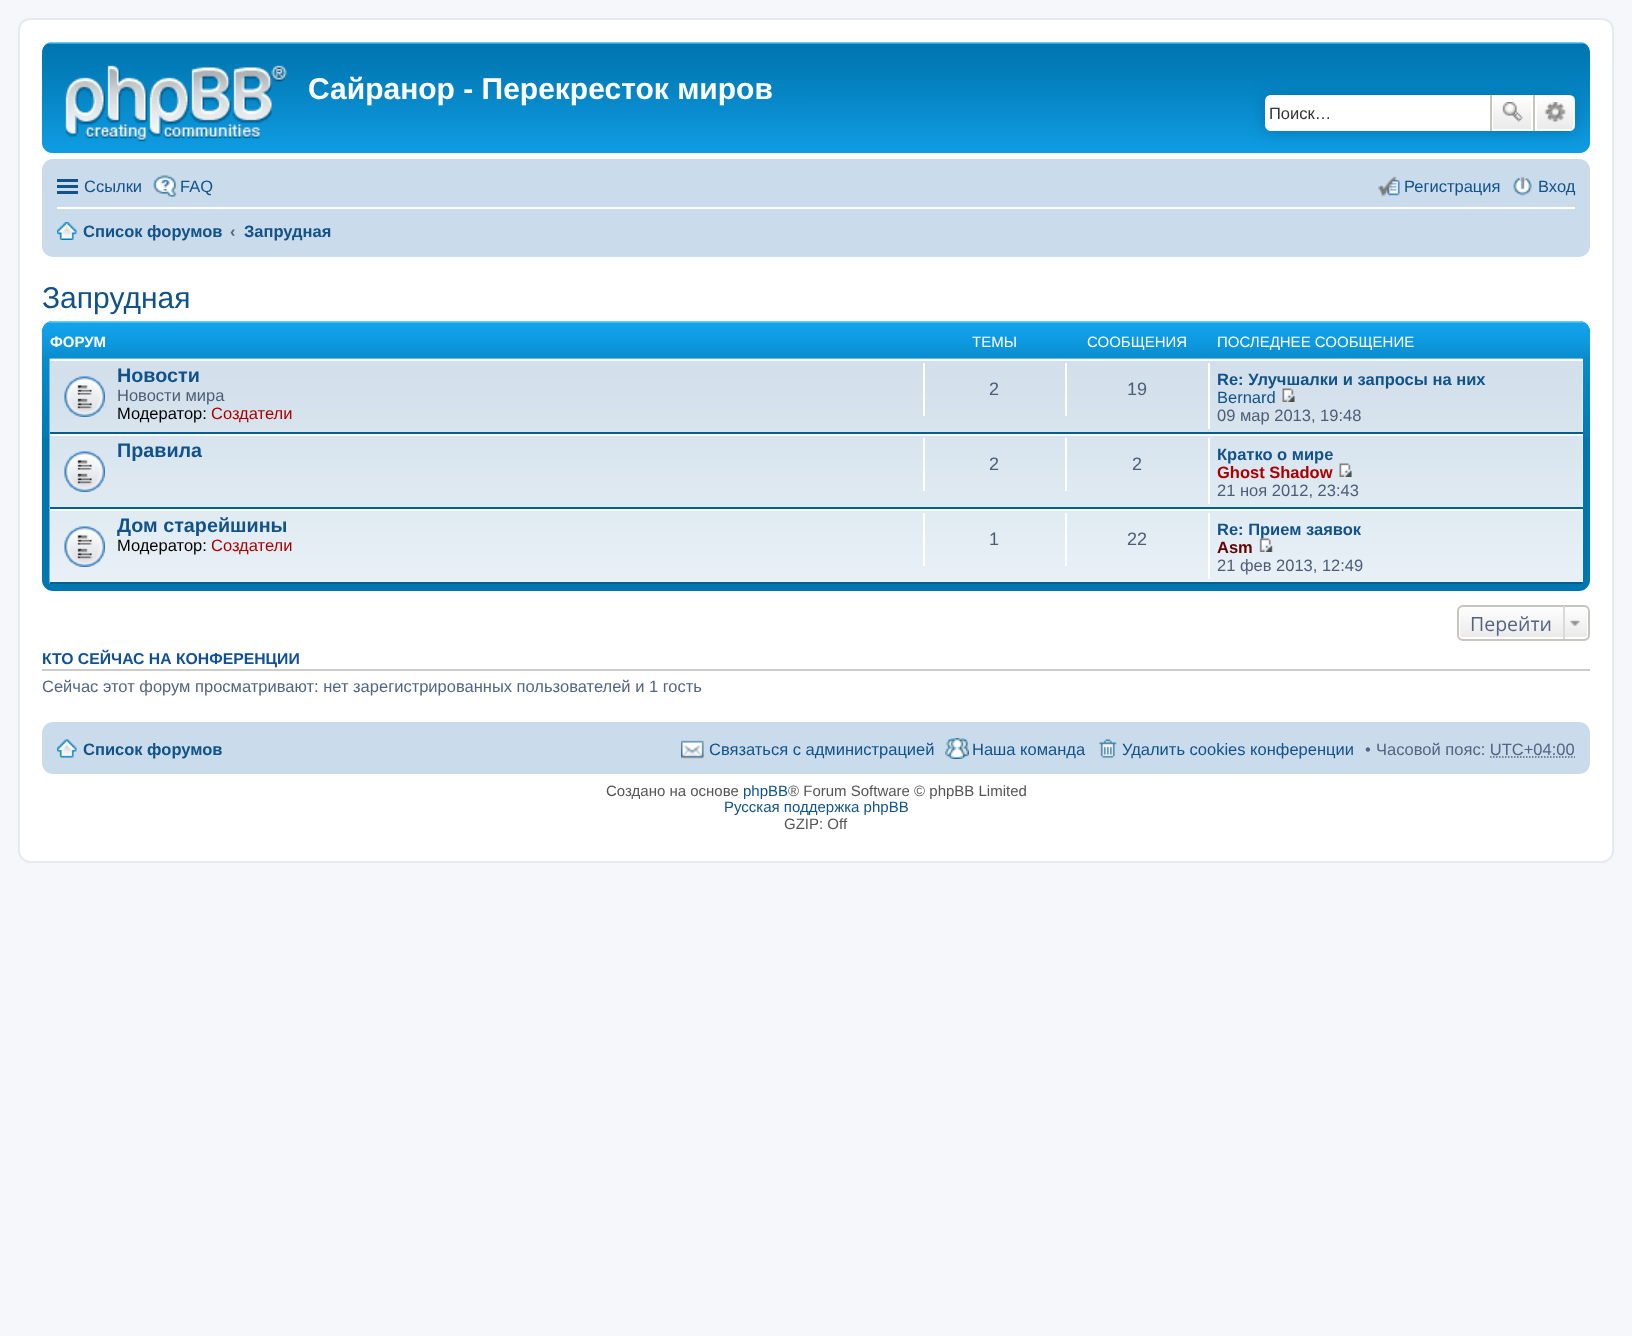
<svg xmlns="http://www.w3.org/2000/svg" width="1632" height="1336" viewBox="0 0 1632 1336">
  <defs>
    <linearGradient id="g1" gradientUnits="userSpaceOnUse" x1="1512" y1="95" x2="1512" y2="131"><stop offset="0" stop-color="#fff"/><stop offset="1" stop-color="#e9e9e9"/></linearGradient>
    <linearGradient id="g2" gradientUnits="userSpaceOnUse" x1="1555" y1="95" x2="1555" y2="131"><stop offset="0" stop-color="#fff"/><stop offset="1" stop-color="#e9e9e9"/></linearGradient>
    <clipPath id="clip1"><rect x="1457" y="605" width="133" height="36" rx="6"/></clipPath>
    <linearGradient id="g3" gradientUnits="userSpaceOnUse" x1="1523" y1="606" x2="1523" y2="639"><stop offset="0" stop-color="#fff"/><stop offset="1" stop-color="#e9e9e9"/></linearGradient>
  </defs>
  <rect width="100%" height="100%" fill="#f5f7fa"/>
  <rect x="19" y="19" width="1594" height="843" rx="11" fill="#fff" stroke="#e6e9ed" stroke-width="2"/>
  <rect x="42" y="42" width="1548" height="111" rx="11" fill="#12a3eb"/>
  <image x="42" y="42" width="1548" height="111" href="img/1.png"/>
  <image x="65" y="65" width="222" height="77" href="img/2.png"/>
  <rect x="1265" y="95" width="310" height="36" rx="6" fill="#0075b0" filter="blur(7.5px)"/>
  <path d="M1271 95H1490V131H1271C1267.5 131 1265 128.5 1265 125V101C1265 97.5 1267.5 95 1271 95Z" fill="#fff"/>
  <path d="M1493 97h38v32H1493z" fill="url(#g1)"/>
  <path d="M1492 96h40v34H1492z" fill="none" stroke="#fff" stroke-width="2"/>
  <path d="M1533 95h2v36H1533z" fill="#c7c3bf"/>
  <path d="M1490 95h2v36H1490z" fill="#c7c3bf"/>
  <image x="1502" y="102" width="21" height="20" href="img/3.png"/>
  <path d="M1536 96H1569C1572 96 1574 98 1574 101V125C1574 128 1572 130 1569 130H1536Z" fill="url(#g2)" stroke="#fff" stroke-width="2"/>
  <image x="1544" y="102" width="23" height="20" href="img/4.png"/>
  <rect x="42" y="159" width="1548" height="98" rx="11" fill="#cadceb"/>
  <path d="M57 179h21v3H57z" fill="#105289"/>
  <path d="M57 185h21v3H57z" fill="#105289"/>
  <path d="M57 191h21v3H57z" fill="#105289"/>
  <image x="153" y="175" width="24" height="22" href="img/5.png"/>
  <image x="1378" y="176" width="22" height="21" href="img/6.png"/>
  <image x="1513" y="176" width="19" height="20" href="img/7.png"/>
  <path d="M57 207h1518v2H57z" fill="#fff"/>
  <image x="57" y="222" width="20" height="18" href="img/8.png"/>
  <rect x="42" y="321" width="1548" height="270" rx="11" fill="#0076b1"/>
  <image x="42" y="321" width="1548" height="116" href="img/9.png"/>
  <path d="M1582 361h1v221H1582z" fill="#eef5f9"/>
  <image x="49" y="358" width="1534" height="226" href="img/10.png"/>
  <path d="M50 359h1533v2H50z" fill="#fff"/>
  <path d="M50 432h1533v2H50z" fill="#00608f"/>
  <image x="64" y="376" width="41" height="41" href="img/11.png"/>
  <path d="M923 363h2v53H923z" fill="#fff"/>
  <path d="M1065 363h2v53H1065z" fill="#fff"/>
  <path d="M1208 363h2v66H1208z" fill="#fff"/>
  <path d="M50 434h1533v2H50z" fill="#fff"/>
  <path d="M50 507h1533v2H50z" fill="#00608f"/>
  <image x="64" y="451" width="41" height="41" href="img/13.png"/>
  <path d="M923 438h2v53H923z" fill="#fff"/>
  <path d="M1065 438h2v53H1065z" fill="#fff"/>
  <path d="M1208 438h2v66H1208z" fill="#fff"/>
  <image x="1339" y="463" width="13" height="14" href="img/14.png"/>
  <path d="M50 509h1533v2H50z" fill="#fff"/>
  <path d="M50 582h1533v2H50z" fill="#00608f"/>
  <image x="64" y="526" width="41" height="41" href="img/15.png"/>
  <path d="M923 513h2v53H923z" fill="#fff"/>
  <path d="M1065 513h2v53H1065z" fill="#fff"/>
  <path d="M1208 513h2v66H1208z" fill="#fff"/>
  <g clip-path="url(#clip1)">
    <path d="M1457 606h133v33H1457z" fill="url(#g3)"/>
  </g>
  <rect x="1459" y="607" width="129" height="31" rx="4" fill="none" stroke="#fff" stroke-width="2"/>
  <rect x="1458" y="606" width="131" height="34" rx="5" fill="none" stroke="#c7c3bf" stroke-width="2"/>
  <image x="1570" y="620" width="10" height="7" href="img/17.png"/>
  <path d="M1563 606h2v33H1563z" fill="#dadada"/>
  <path d="M42 669h1548v2H42z" fill="#ccc"/>
  <rect x="42" y="722" width="1548" height="52" rx="11" fill="#cadceb"/>
  <image x="57" y="739" width="20" height="19" href="img/18.png"/>
  <image x="681" y="740" width="23" height="19" href="img/19.png"/>
  <image x="945" y="738" width="24" height="21" href="img/20.png"/>
  <image x="1099" y="739" width="18" height="19" href="img/21.png"/>
  <path d="M1490 757H1575" fill="none" stroke="#536482" stroke-width="1.5" stroke-dasharray="1.5 1.5"/>
  <text x="308" y="99" font-family="Liberation Sans" font-size="30" font-weight="bold" fill="#fff">Сайранор - Перекресток миров</text>
  <text x="1269" y="119" font-family="Liberation Sans" font-size="16.5" fill="#333">Поиск…</text>
  <g font-family="Liberation Sans" font-size="16.5" fill="#105289">
    <text x="84" y="192">Ссылки</text>
    <text x="180" y="192">FAQ</text>
    <text x="1404" y="192">Регистрация</text>
    <text x="1538" y="192">Вход</text>
  </g>
  <text x="83" y="237" font-family="Liberation Sans" font-size="16.5" font-weight="bold" fill="#105289">Список форумов</text>
  <text x="230" y="237" font-family="Liberation Sans" font-size="16.5" font-weight="bold" fill="#536482">‹</text>
  <text x="244" y="237" font-family="Liberation Sans" font-size="16.5" font-weight="bold" fill="#105289">Запрудная</text>
  <text x="42" y="308" font-family="Liberation Sans" font-size="30" fill="#105289">Запрудная</text>
  <text x="50" y="347" font-family="Liberation Sans" font-size="15" font-weight="bold" fill="#fff">ФОРУМ</text>
  <g font-family="Liberation Sans" font-size="15" fill="#fff">
    <text x="972" y="347">ТЕМЫ</text>
    <text x="1087" y="347">СООБЩЕНИЯ</text>
    <text x="1217" y="347">ПОСЛЕДНЕЕ СООБЩЕНИЕ</text>
  </g>
  <text x="117" y="382" font-family="Liberation Sans" font-size="19.75" font-weight="bold" fill="#105289">Новости</text>
  <text x="117" y="401" font-family="Liberation Sans" font-size="16.5" fill="#4c5d77">Новости мира</text>
  <text x="117" y="419" font-family="Liberation Sans" font-size="16.5" fill="#000">Модератор:</text>
  <text x="211" y="419" font-family="Liberation Sans" font-size="16.5" fill="#a00">Создатели</text>
  <g font-family="Liberation Sans" font-size="18" fill="#4c5d77">
    <text x="989" y="395">2</text>
    <text x="1127" y="395">19</text>
  </g>
  <text x="1217" y="385" font-family="Liberation Sans" font-size="16.5" font-weight="bold" fill="#105289">Re: Улучшалки и запросы на них</text>
  <text x="1217" y="403" font-family="Liberation Sans" font-size="16.5" fill="#105289">Bernard</text>
  <image x="1282" y="388" width="13" height="14" href="img/12.png"/>
  <text x="1217" y="421" font-family="Liberation Sans" font-size="16.5" fill="#4c5d77">09 мар 2013, 19:48</text>
  <text x="117" y="457" font-family="Liberation Sans" font-size="19.75" font-weight="bold" fill="#105289">Правила</text>
  <g font-family="Liberation Sans" font-size="18" fill="#4c5d77">
    <text x="989" y="470">2</text>
    <text x="1132" y="470">2</text>
  </g>
  <text x="1217" y="460" font-family="Liberation Sans" font-size="16.5" font-weight="bold" fill="#105289">Кратко о мире</text>
  <text x="1217" y="478" font-family="Liberation Sans" font-size="16.5" font-weight="bold" fill="#a00">Ghost Shadow</text>
  <text x="1217" y="496" font-family="Liberation Sans" font-size="16.5" fill="#4c5d77">21 ноя 2012, 23:43</text>
  <text x="117" y="532" font-family="Liberation Sans" font-size="19.75" font-weight="bold" fill="#105289">Дом старейшины</text>
  <text x="117" y="551" font-family="Liberation Sans" font-size="16.5" fill="#000">Модератор:</text>
  <text x="211" y="551" font-family="Liberation Sans" font-size="16.5" fill="#a00">Создатели</text>
  <g font-family="Liberation Sans" font-size="18" fill="#4c5d77">
    <text x="989" y="545">1</text>
    <text x="1127" y="545">22</text>
  </g>
  <text x="1217" y="535" font-family="Liberation Sans" font-size="16.5" font-weight="bold" fill="#105289">Re: Прием заявок</text>
  <text x="1217" y="553" font-family="Liberation Sans" font-size="16.5" font-weight="bold" fill="#600">Asm</text>
  <image x="1259" y="538" width="14" height="14" href="img/16.png"/>
  <text x="1217" y="571" font-family="Liberation Sans" font-size="16.5" fill="#4c5d77">21 фев 2013, 12:49</text>
  <text x="1470" y="631" font-family="Open Sans" font-size="19.5" fill="#536482">Перейти</text>
  <text x="42" y="664" font-family="Liberation Sans" font-size="15.75" font-weight="bold" fill="#115098">КТО СЕЙЧАС НА КОНФЕРЕНЦИИ</text>
  <text x="42" y="692" font-family="Liberation Sans" font-size="16.5" fill="#536482">Сейчас этот форум просматривают: нет зарегистрированных пользователей и 1 гость</text>
  <text x="83" y="755" font-family="Liberation Sans" font-size="16.5" font-weight="bold" fill="#105289">Список форумов</text>
  <g font-family="Liberation Sans" font-size="16.5" fill="#105289">
    <text x="709" y="755">Связаться с администрацией</text>
    <text x="972" y="755">Наша команда</text>
    <text x="1122" y="755">Удалить cookies конференции</text>
  </g>
  <g font-family="Liberation Sans" font-size="16.5" fill="#536482">
    <text x="1365" y="755">•</text>
    <text x="1376" y="755">Часовой пояс: UTC+04:00</text>
  </g>
  <text x="606" y="796" font-family="Liberation Sans" font-size="15" fill="#555">Создано на основе</text>
  <text x="743" y="796" font-family="Liberation Sans" font-size="15" fill="#105289">phpBB</text>
  <text x="788" y="796" font-family="Liberation Sans" font-size="15" fill="#555">® Forum Software © phpBB Limited</text>
  <text x="724" y="812" font-family="Liberation Sans" font-size="15" fill="#105289">Русская поддержка phpBB</text>
  <text x="784" y="829" font-family="Liberation Sans" font-size="15" fill="#555">GZIP: Off</text>
</svg>
